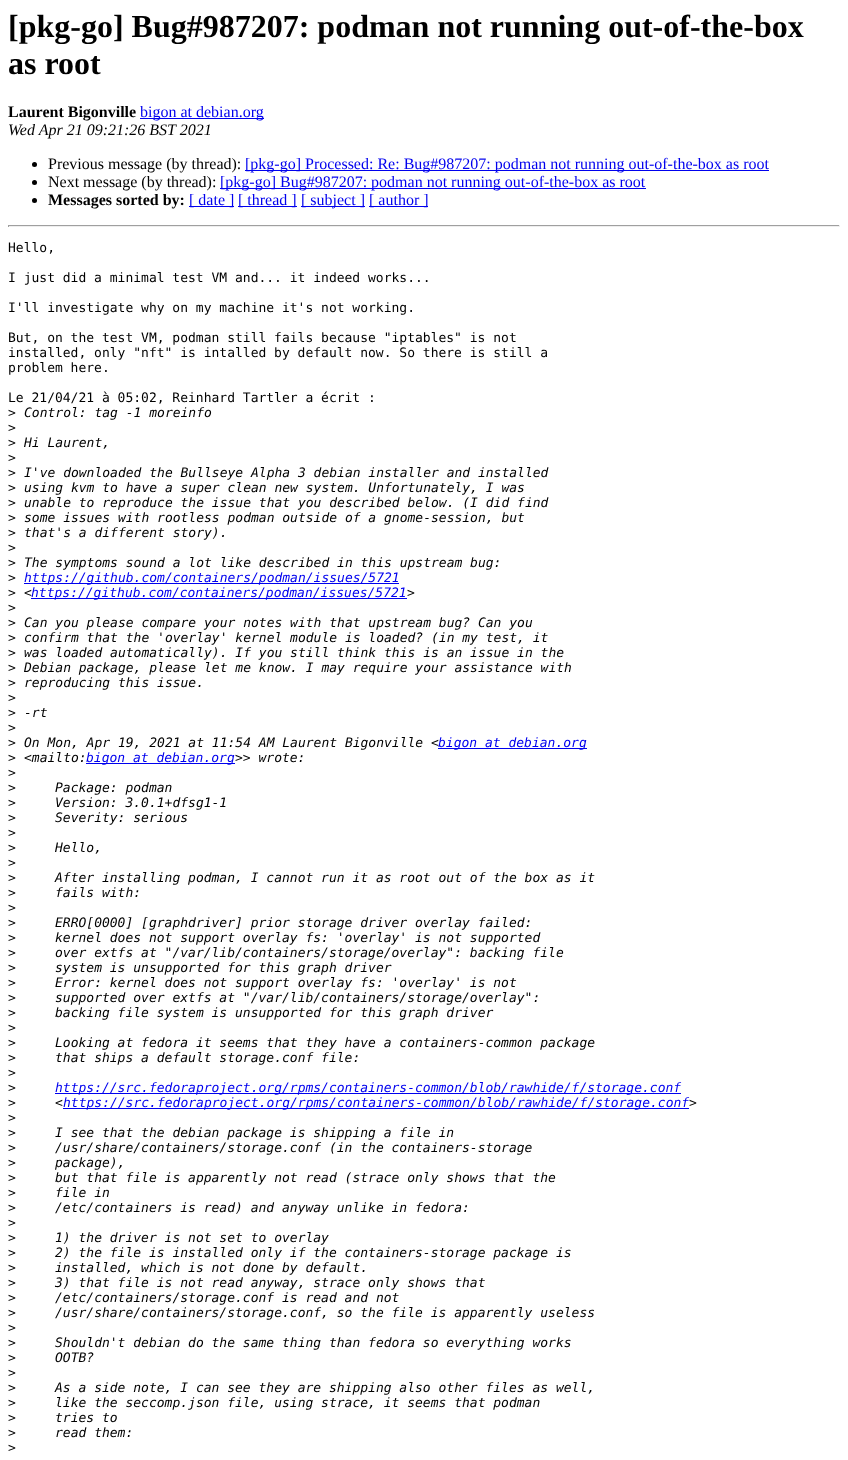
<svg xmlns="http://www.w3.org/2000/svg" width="848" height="1460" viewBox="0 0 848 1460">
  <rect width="100%" height="100%" fill="#fff"/>
  <path d="M140 118h124v1H140z" fill="#00e"/>
  <circle cx="34.5" cy="164.5" r="2.5" fill="#000"/>
  <path d="M245 170h524v1H245z" fill="#00e"/>
  <circle cx="34.5" cy="182.5" r="2.5" fill="#000"/>
  <path d="M220 188h426v1H220z" fill="#00e"/>
  <circle cx="34.5" cy="200.5" r="2.5" fill="#000"/>
  <path d="M189 206h45v1H189z" fill="#00e"/>
  <path d="M238 206h59v1H238z" fill="#00e"/>
  <path d="M301 206h64v1H301z" fill="#00e"/>
  <path d="M369 206h59v1H369z" fill="#00e"/>
  <path d="M8 225h832v1H8z" fill="#9f9f9f"/>
  <path d="M839 225h1v2H839z" fill="#eee"/>
  <path d="M8 226h832v1H8z" fill="#eee"/>
  <path d="M8 225h1v2H8z" fill="#9f9f9f"/>
  <path d="M24 583h375v1H24z" fill="#00e"/>
  <path d="M31 598h376v1H31z" fill="#00e"/>
  <path d="M438 748h149v1H438z" fill="#00e"/>
  <path d="M86 763h149v1H86z" fill="#00e"/>
  <path d="M55 1093h626v1H55z" fill="#00e"/>
  <path d="M63 1108h626v1H63z" fill="#00e"/>
  <g font-family="Liberation Serif" font-size="32" font-weight="bold" fill="#000">
    <text x="8" y="37">[pkg-go] Bug#987207: podman not running out-of-the-box</text>
    <text x="8" y="74">as root</text>
  </g>
  <text x="8" y="117" font-family="Liberation Serif" font-size="16" font-weight="bold" fill="#000">Laurent Bigonville</text>
  <text x="140" y="117" font-family="Liberation Serif" font-size="16" fill="#00e">bigon at debian.org</text>
  <text x="8" y="135" font-family="Liberation Serif" font-size="16" font-style="italic" fill="#000">Wed Apr 21 09:21:26 BST 2021</text>
  <text x="48" y="169" font-family="Liberation Serif" font-size="16" fill="#000">Previous message (by thread):</text>
  <text x="245" y="169" font-family="Liberation Serif" font-size="16" fill="#00e">[pkg-go] Processed: Re: Bug#987207: podman not running out-of-the-box as root</text>
  <text x="48" y="187" font-family="Liberation Serif" font-size="16" fill="#000">Next message (by thread):</text>
  <text x="220" y="187" font-family="Liberation Serif" font-size="16" fill="#00e">[pkg-go] Bug#987207: podman not running out-of-the-box as root</text>
  <text x="48" y="205" font-family="Liberation Serif" font-size="16" font-weight="bold" fill="#000">Messages sorted by:</text>
  <g font-family="Liberation Serif" font-size="16" fill="#00e">
    <text x="189" y="205">[ date ]</text>
    <text x="238" y="205">[ thread ]</text>
    <text x="301" y="205">[ subject ]</text>
    <text x="369" y="205">[ author ]</text>
  </g>
  <g font-family="DejaVu Sans Mono" font-size="13" fill="#000">
    <text x="8" y="252">Hello,</text>
    <text x="8" y="282">I just did a minimal test VM and... it indeed works...</text>
    <text x="8" y="312">I'll investigate why on my machine it's not working.</text>
    <text x="8" y="342">But, on the test VM, podman still fails because "iptables" is not</text>
    <text x="8" y="357">installed, only "nft" is intalled by default now. So there is still a</text>
    <text x="8" y="372">problem here.</text>
    <text x="8" y="402">Le 21/04/21 à 05:02, Reinhard Tartler a écrit :</text>
    <text x="8" y="417">&gt;</text>
  </g>
  <text x="24" y="417" font-family="DejaVu Sans Mono" font-size="13" font-style="italic" fill="#000">Control: tag -1 moreinfo</text>
  <g font-family="DejaVu Sans Mono" font-size="13" fill="#000">
    <text x="8" y="432">&gt;</text>
    <text x="8" y="447">&gt;</text>
  </g>
  <text x="24" y="447" font-family="DejaVu Sans Mono" font-size="13" font-style="italic" fill="#000">Hi Laurent,</text>
  <g font-family="DejaVu Sans Mono" font-size="13" fill="#000">
    <text x="8" y="462">&gt;</text>
    <text x="8" y="477">&gt;</text>
  </g>
  <text x="24" y="477" font-family="DejaVu Sans Mono" font-size="13" font-style="italic" fill="#000">I've downloaded the Bullseye Alpha 3 debian installer and installed</text>
  <text x="8" y="492" font-family="DejaVu Sans Mono" font-size="13" fill="#000">&gt;</text>
  <text x="24" y="492" font-family="DejaVu Sans Mono" font-size="13" font-style="italic" fill="#000">using kvm to have a super clean new system. Unfortunately, I was</text>
  <text x="8" y="507" font-family="DejaVu Sans Mono" font-size="13" fill="#000">&gt;</text>
  <text x="24" y="507" font-family="DejaVu Sans Mono" font-size="13" font-style="italic" fill="#000">unable to reproduce the issue that you described below. (I did find</text>
  <text x="8" y="522" font-family="DejaVu Sans Mono" font-size="13" fill="#000">&gt;</text>
  <text x="24" y="522" font-family="DejaVu Sans Mono" font-size="13" font-style="italic" fill="#000">some issues with rootless podman outside of a gnome-session, but</text>
  <text x="8" y="537" font-family="DejaVu Sans Mono" font-size="13" fill="#000">&gt;</text>
  <text x="24" y="537" font-family="DejaVu Sans Mono" font-size="13" font-style="italic" fill="#000">that's a different story).</text>
  <g font-family="DejaVu Sans Mono" font-size="13" fill="#000">
    <text x="8" y="552">&gt;</text>
    <text x="8" y="567">&gt;</text>
  </g>
  <text x="24" y="567" font-family="DejaVu Sans Mono" font-size="13" font-style="italic" fill="#000">The symptoms sound a lot like described in this upstream bug:</text>
  <text x="8" y="582" font-family="DejaVu Sans Mono" font-size="13" fill="#000">&gt;</text>
  <text x="24" y="582" font-family="DejaVu Sans Mono" font-size="13" font-style="italic" fill="#00e">https://github.com/containers/podman/issues/5721</text>
  <text x="8" y="597" font-family="DejaVu Sans Mono" font-size="13" fill="#000">&gt;</text>
  <text x="24" y="597" font-family="DejaVu Sans Mono" font-size="13" font-style="italic" fill="#000">&lt;</text>
  <text x="31" y="597" font-family="DejaVu Sans Mono" font-size="13" font-style="italic" fill="#00e">https://github.com/containers/podman/issues/5721</text>
  <text x="407" y="597" font-family="DejaVu Sans Mono" font-size="13" font-style="italic" fill="#000">&gt;</text>
  <g font-family="DejaVu Sans Mono" font-size="13" fill="#000">
    <text x="8" y="612">&gt;</text>
    <text x="8" y="627">&gt;</text>
  </g>
  <text x="24" y="627" font-family="DejaVu Sans Mono" font-size="13" font-style="italic" fill="#000">Can you please compare your notes with that upstream bug? Can you</text>
  <text x="8" y="642" font-family="DejaVu Sans Mono" font-size="13" fill="#000">&gt;</text>
  <text x="24" y="642" font-family="DejaVu Sans Mono" font-size="13" font-style="italic" fill="#000">confirm that the 'overlay' kernel module is loaded? (in my test, it</text>
  <text x="8" y="657" font-family="DejaVu Sans Mono" font-size="13" fill="#000">&gt;</text>
  <text x="24" y="657" font-family="DejaVu Sans Mono" font-size="13" font-style="italic" fill="#000">was loaded automatically). If you still think this is an issue in the</text>
  <text x="8" y="672" font-family="DejaVu Sans Mono" font-size="13" fill="#000">&gt;</text>
  <text x="24" y="672" font-family="DejaVu Sans Mono" font-size="13" font-style="italic" fill="#000">Debian package, please let me know. I may require your assistance with</text>
  <text x="8" y="687" font-family="DejaVu Sans Mono" font-size="13" fill="#000">&gt;</text>
  <text x="24" y="687" font-family="DejaVu Sans Mono" font-size="13" font-style="italic" fill="#000">reproducing this issue.</text>
  <g font-family="DejaVu Sans Mono" font-size="13" fill="#000">
    <text x="8" y="702">&gt;</text>
    <text x="8" y="717">&gt;</text>
  </g>
  <text x="24" y="717" font-family="DejaVu Sans Mono" font-size="13" font-style="italic" fill="#000">-rt</text>
  <g font-family="DejaVu Sans Mono" font-size="13" fill="#000">
    <text x="8" y="732">&gt;</text>
    <text x="8" y="747">&gt;</text>
  </g>
  <text x="24" y="747" font-family="DejaVu Sans Mono" font-size="13" font-style="italic" fill="#000">On Mon, Apr 19, 2021 at 11:54 AM Laurent Bigonville &lt;</text>
  <text x="438" y="747" font-family="DejaVu Sans Mono" font-size="13" font-style="italic" fill="#00e">bigon at debian.org</text>
  <text x="8" y="762" font-family="DejaVu Sans Mono" font-size="13" fill="#000">&gt;</text>
  <text x="24" y="762" font-family="DejaVu Sans Mono" font-size="13" font-style="italic" fill="#000">&lt;mailto:</text>
  <text x="86" y="762" font-family="DejaVu Sans Mono" font-size="13" font-style="italic" fill="#00e">bigon at debian.org</text>
  <text x="235" y="762" font-family="DejaVu Sans Mono" font-size="13" font-style="italic" fill="#000">&gt;&gt; wrote:</text>
  <g font-family="DejaVu Sans Mono" font-size="13" fill="#000">
    <text x="8" y="777">&gt;</text>
    <text x="8" y="792">&gt;</text>
  </g>
  <text x="55" y="792" font-family="DejaVu Sans Mono" font-size="13" font-style="italic" fill="#000">Package: podman</text>
  <text x="8" y="807" font-family="DejaVu Sans Mono" font-size="13" fill="#000">&gt;</text>
  <text x="55" y="807" font-family="DejaVu Sans Mono" font-size="13" font-style="italic" fill="#000">Version: 3.0.1+dfsg1-1</text>
  <text x="8" y="822" font-family="DejaVu Sans Mono" font-size="13" fill="#000">&gt;</text>
  <text x="55" y="822" font-family="DejaVu Sans Mono" font-size="13" font-style="italic" fill="#000">Severity: serious</text>
  <g font-family="DejaVu Sans Mono" font-size="13" fill="#000">
    <text x="8" y="837">&gt;</text>
    <text x="8" y="852">&gt;</text>
  </g>
  <text x="55" y="852" font-family="DejaVu Sans Mono" font-size="13" font-style="italic" fill="#000">Hello,</text>
  <g font-family="DejaVu Sans Mono" font-size="13" fill="#000">
    <text x="8" y="867">&gt;</text>
    <text x="8" y="882">&gt;</text>
  </g>
  <text x="55" y="882" font-family="DejaVu Sans Mono" font-size="13" font-style="italic" fill="#000">After installing podman, I cannot run it as root out of the box as it</text>
  <text x="8" y="897" font-family="DejaVu Sans Mono" font-size="13" fill="#000">&gt;</text>
  <text x="55" y="897" font-family="DejaVu Sans Mono" font-size="13" font-style="italic" fill="#000">fails with:</text>
  <g font-family="DejaVu Sans Mono" font-size="13" fill="#000">
    <text x="8" y="912">&gt;</text>
    <text x="8" y="927">&gt;</text>
  </g>
  <text x="55" y="927" font-family="DejaVu Sans Mono" font-size="13" font-style="italic" fill="#000">ERRO[0000] [graphdriver] prior storage driver overlay failed:</text>
  <text x="8" y="942" font-family="DejaVu Sans Mono" font-size="13" fill="#000">&gt;</text>
  <text x="55" y="942" font-family="DejaVu Sans Mono" font-size="13" font-style="italic" fill="#000">kernel does not support overlay fs: 'overlay' is not supported</text>
  <text x="8" y="957" font-family="DejaVu Sans Mono" font-size="13" fill="#000">&gt;</text>
  <text x="55" y="957" font-family="DejaVu Sans Mono" font-size="13" font-style="italic" fill="#000">over extfs at "/var/lib/containers/storage/overlay": backing file</text>
  <text x="8" y="972" font-family="DejaVu Sans Mono" font-size="13" fill="#000">&gt;</text>
  <text x="55" y="972" font-family="DejaVu Sans Mono" font-size="13" font-style="italic" fill="#000">system is unsupported for this graph driver</text>
  <text x="8" y="987" font-family="DejaVu Sans Mono" font-size="13" fill="#000">&gt;</text>
  <text x="55" y="987" font-family="DejaVu Sans Mono" font-size="13" font-style="italic" fill="#000">Error: kernel does not support overlay fs: 'overlay' is not</text>
  <text x="8" y="1002" font-family="DejaVu Sans Mono" font-size="13" fill="#000">&gt;</text>
  <text x="55" y="1002" font-family="DejaVu Sans Mono" font-size="13" font-style="italic" fill="#000">supported over extfs at "/var/lib/containers/storage/overlay":</text>
  <text x="8" y="1017" font-family="DejaVu Sans Mono" font-size="13" fill="#000">&gt;</text>
  <text x="55" y="1017" font-family="DejaVu Sans Mono" font-size="13" font-style="italic" fill="#000">backing file system is unsupported for this graph driver</text>
  <g font-family="DejaVu Sans Mono" font-size="13" fill="#000">
    <text x="8" y="1032">&gt;</text>
    <text x="8" y="1047">&gt;</text>
  </g>
  <text x="55" y="1047" font-family="DejaVu Sans Mono" font-size="13" font-style="italic" fill="#000">Looking at fedora it seems that they have a containers-common package</text>
  <text x="8" y="1062" font-family="DejaVu Sans Mono" font-size="13" fill="#000">&gt;</text>
  <text x="55" y="1062" font-family="DejaVu Sans Mono" font-size="13" font-style="italic" fill="#000">that ships a default storage.conf file:</text>
  <g font-family="DejaVu Sans Mono" font-size="13" fill="#000">
    <text x="8" y="1077">&gt;</text>
    <text x="8" y="1092">&gt;</text>
  </g>
  <text x="55" y="1092" font-family="DejaVu Sans Mono" font-size="13" font-style="italic" fill="#00e">https://src.fedoraproject.org/rpms/containers-common/blob/rawhide/f/storage.conf</text>
  <text x="8" y="1107" font-family="DejaVu Sans Mono" font-size="13" fill="#000">&gt;</text>
  <text x="55" y="1107" font-family="DejaVu Sans Mono" font-size="13" font-style="italic" fill="#000">&lt;</text>
  <text x="63" y="1107" font-family="DejaVu Sans Mono" font-size="13" font-style="italic" fill="#00e">https://src.fedoraproject.org/rpms/containers-common/blob/rawhide/f/storage.conf</text>
  <text x="689" y="1107" font-family="DejaVu Sans Mono" font-size="13" font-style="italic" fill="#000">&gt;</text>
  <g font-family="DejaVu Sans Mono" font-size="13" fill="#000">
    <text x="8" y="1122">&gt;</text>
    <text x="8" y="1137">&gt;</text>
  </g>
  <text x="55" y="1137" font-family="DejaVu Sans Mono" font-size="13" font-style="italic" fill="#000">I see that the debian package is shipping a file in</text>
  <text x="8" y="1152" font-family="DejaVu Sans Mono" font-size="13" fill="#000">&gt;</text>
  <text x="55" y="1152" font-family="DejaVu Sans Mono" font-size="13" font-style="italic" fill="#000">/usr/share/containers/storage.conf (in the containers-storage</text>
  <text x="8" y="1167" font-family="DejaVu Sans Mono" font-size="13" fill="#000">&gt;</text>
  <text x="55" y="1167" font-family="DejaVu Sans Mono" font-size="13" font-style="italic" fill="#000">package),</text>
  <text x="8" y="1182" font-family="DejaVu Sans Mono" font-size="13" fill="#000">&gt;</text>
  <text x="55" y="1182" font-family="DejaVu Sans Mono" font-size="13" font-style="italic" fill="#000">but that file is apparently not read (strace only shows that the</text>
  <text x="8" y="1197" font-family="DejaVu Sans Mono" font-size="13" fill="#000">&gt;</text>
  <text x="55" y="1197" font-family="DejaVu Sans Mono" font-size="13" font-style="italic" fill="#000">file in</text>
  <text x="8" y="1212" font-family="DejaVu Sans Mono" font-size="13" fill="#000">&gt;</text>
  <text x="55" y="1212" font-family="DejaVu Sans Mono" font-size="13" font-style="italic" fill="#000">/etc/containers is read) and anyway unlike in fedora:</text>
  <g font-family="DejaVu Sans Mono" font-size="13" fill="#000">
    <text x="8" y="1227">&gt;</text>
    <text x="8" y="1242">&gt;</text>
  </g>
  <text x="55" y="1242" font-family="DejaVu Sans Mono" font-size="13" font-style="italic" fill="#000">1) the driver is not set to overlay</text>
  <text x="8" y="1257" font-family="DejaVu Sans Mono" font-size="13" fill="#000">&gt;</text>
  <text x="55" y="1257" font-family="DejaVu Sans Mono" font-size="13" font-style="italic" fill="#000">2) the file is installed only if the containers-storage package is</text>
  <text x="8" y="1272" font-family="DejaVu Sans Mono" font-size="13" fill="#000">&gt;</text>
  <text x="55" y="1272" font-family="DejaVu Sans Mono" font-size="13" font-style="italic" fill="#000">installed, which is not done by default.</text>
  <text x="8" y="1287" font-family="DejaVu Sans Mono" font-size="13" fill="#000">&gt;</text>
  <text x="55" y="1287" font-family="DejaVu Sans Mono" font-size="13" font-style="italic" fill="#000">3) that file is not read anyway, strace only shows that</text>
  <text x="8" y="1302" font-family="DejaVu Sans Mono" font-size="13" fill="#000">&gt;</text>
  <text x="55" y="1302" font-family="DejaVu Sans Mono" font-size="13" font-style="italic" fill="#000">/etc/containers/storage.conf is read and not</text>
  <text x="8" y="1317" font-family="DejaVu Sans Mono" font-size="13" fill="#000">&gt;</text>
  <text x="55" y="1317" font-family="DejaVu Sans Mono" font-size="13" font-style="italic" fill="#000">/usr/share/containers/storage.conf, so the file is apparently useless</text>
  <g font-family="DejaVu Sans Mono" font-size="13" fill="#000">
    <text x="8" y="1332">&gt;</text>
    <text x="8" y="1347">&gt;</text>
  </g>
  <text x="55" y="1347" font-family="DejaVu Sans Mono" font-size="13" font-style="italic" fill="#000">Shouldn't debian do the same thing than fedora so everything works</text>
  <text x="8" y="1362" font-family="DejaVu Sans Mono" font-size="13" fill="#000">&gt;</text>
  <text x="55" y="1362" font-family="DejaVu Sans Mono" font-size="13" font-style="italic" fill="#000">OOTB?</text>
  <g font-family="DejaVu Sans Mono" font-size="13" fill="#000">
    <text x="8" y="1377">&gt;</text>
    <text x="8" y="1392">&gt;</text>
  </g>
  <text x="55" y="1392" font-family="DejaVu Sans Mono" font-size="13" font-style="italic" fill="#000">As a side note, I can see they are shipping also other files as well,</text>
  <text x="8" y="1407" font-family="DejaVu Sans Mono" font-size="13" fill="#000">&gt;</text>
  <text x="55" y="1407" font-family="DejaVu Sans Mono" font-size="13" font-style="italic" fill="#000">like the seccomp.json file, using strace, it seems that podman</text>
  <text x="8" y="1422" font-family="DejaVu Sans Mono" font-size="13" fill="#000">&gt;</text>
  <text x="55" y="1422" font-family="DejaVu Sans Mono" font-size="13" font-style="italic" fill="#000">tries to</text>
  <text x="8" y="1437" font-family="DejaVu Sans Mono" font-size="13" fill="#000">&gt;</text>
  <text x="55" y="1437" font-family="DejaVu Sans Mono" font-size="13" font-style="italic" fill="#000">read them:</text>
  <text x="8" y="1452" font-family="DejaVu Sans Mono" font-size="13" fill="#000">&gt;</text>
</svg>
